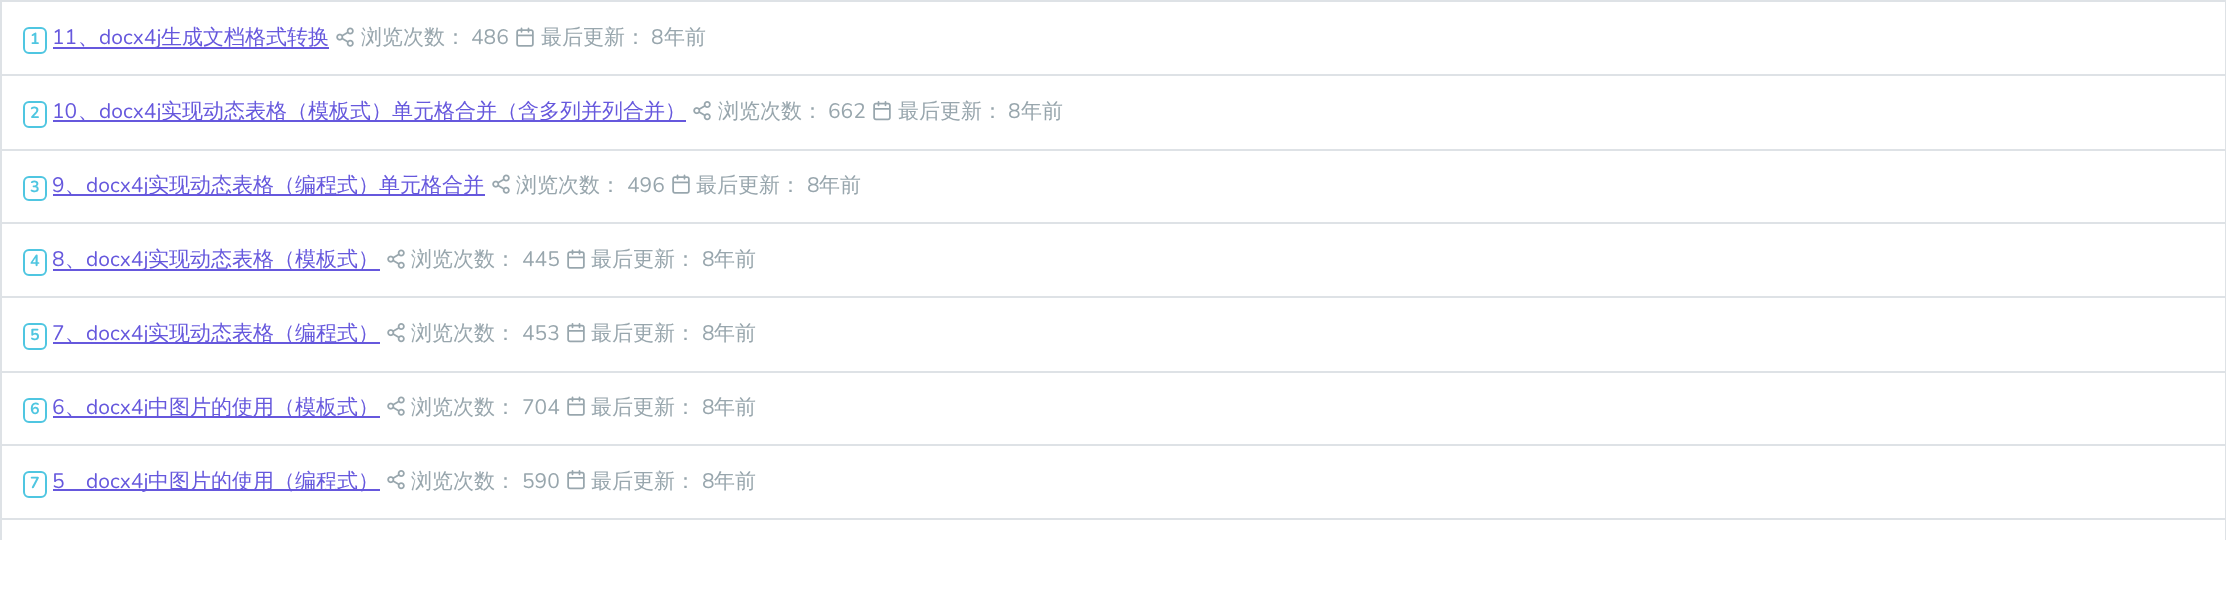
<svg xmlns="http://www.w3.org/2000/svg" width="2226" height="603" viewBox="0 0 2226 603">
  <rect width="100%" height="100%" fill="#fff"/>
  <path d="M0 0h2226v2H0z" fill="#dee2e6"/>
  <path d="M0 74h2226v2H0z" fill="#dee2e6"/>
  <path d="M0 149h2226v2H0z" fill="#dee2e6"/>
  <path d="M0 222h2226v2H0z" fill="#dee2e6"/>
  <path d="M0 296h2226v2H0z" fill="#dee2e6"/>
  <path d="M0 371h2226v2H0z" fill="#dee2e6"/>
  <path d="M0 444h2226v2H0z" fill="#dee2e6"/>
  <path d="M0 518h2226v2H0z" fill="#dee2e6"/>
  <path d="M2225 518h1v22H2225z" fill="#dee2e6"/>
  <path d="M2225 444h1v75H2225z" fill="#dee2e6"/>
  <path d="M2225 371h1v75H2225z" fill="#dee2e6"/>
  <path d="M2225 296h1v76H2225z" fill="#dee2e6"/>
  <path d="M2225 222h1v75H2225z" fill="#dee2e6"/>
  <path d="M2225 149h1v75H2225z" fill="#dee2e6"/>
  <path d="M2225 74h1v76H2225z" fill="#dee2e6"/>
  <path d="M2225 0h1v75H2225z" fill="#dee2e6"/>
  <path d="M0 518h2v22H0z" fill="#dee2e6"/>
  <path d="M0 444h2v75H0z" fill="#dee2e6"/>
  <path d="M0 371h2v75H0z" fill="#dee2e6"/>
  <path d="M0 296h2v76H0z" fill="#dee2e6"/>
  <path d="M0 222h2v75H0z" fill="#dee2e6"/>
  <path d="M0 149h2v75H0z" fill="#dee2e6"/>
  <path d="M0 74h2v76H0z" fill="#dee2e6"/>
  <path d="M0 0h2v75H0z" fill="#dee2e6"/>
  <rect x="24" y="28" width="22" height="25" rx="5" fill="none" stroke="#4fc6e1" stroke-width="2"/>
  <image x="336" y="27" width="18" height="20" href="img/1.png"/>
  <image x="516" y="27" width="18" height="20" href="img/2.png"/>
  <path d="M53 47h276v2H53z" fill="#6658dd"/>
  <rect x="24" y="102" width="22" height="25" rx="5" fill="none" stroke="#4fc6e1" stroke-width="2"/>
  <image x="693" y="101" width="18" height="20" href="img/3.png"/>
  <image x="873" y="101" width="18" height="20" href="img/4.png"/>
  <path d="M53 120h633v2H53z" fill="#6658dd"/>
  <rect x="24" y="177" width="22" height="23" rx="5" fill="none" stroke="#4fc6e1" stroke-width="2"/>
  <path d="M53 194h432v2H53z" fill="#6658dd"/>
  <image x="492" y="174" width="18" height="20" href="img/1.png"/>
  <image x="672" y="174" width="18" height="20" href="img/2.png"/>
  <rect x="24" y="250" width="22" height="25" rx="5" fill="none" stroke="#4fc6e1" stroke-width="2"/>
  <path d="M53 269h327v2H53z" fill="#6658dd"/>
  <image x="387" y="249" width="18" height="20" href="img/1.png"/>
  <image x="567" y="249" width="18" height="20" href="img/2.png"/>
  <rect x="24" y="324" width="22" height="25" rx="5" fill="none" stroke="#4fc6e1" stroke-width="2"/>
  <path d="M53 342h327v2H53z" fill="#6658dd"/>
  <image x="387" y="323" width="18" height="20" href="img/3.png"/>
  <image x="567" y="323" width="18" height="20" href="img/4.png"/>
  <rect x="24" y="399" width="22" height="23" rx="5" fill="none" stroke="#4fc6e1" stroke-width="2"/>
  <path d="M53 416h327v2H53z" fill="#6658dd"/>
  <image x="387" y="396" width="18" height="20" href="img/1.png"/>
  <image x="567" y="396" width="18" height="20" href="img/2.png"/>
  <rect x="24" y="472" width="22" height="25" rx="5" fill="none" stroke="#4fc6e1" stroke-width="2"/>
  <path d="M53 489h327v2H53z" fill="#6658dd"/>
  <image x="387" y="470" width="18" height="20" href="img/3.png"/>
  <image x="567" y="470" width="18" height="20" href="img/4.png"/>
  <text x="30" y="44" font-family="Nunito" font-size="16" font-weight="bold" fill="#4fc6e1">1</text>
  <g font-family="Nunito" font-size="21" fill="#6658dd">
    <text x="52" y="44">11</text>
    <text x="99" y="44">docx4j</text>
  </g>
  <text x="161" y="44" font-family="WenQuanYi Zen Hei" font-size="21" font-weight="500" fill="#6658dd">生成文档格式转换</text>
  <text x="361" y="44" font-family="WenQuanYi Zen Hei" font-size="21" font-weight="500" fill="#98a6ad">浏览次数：</text>
  <text x="471" y="44" font-family="Nunito" font-size="21" fill="#98a6ad">486</text>
  <text x="541" y="44" font-family="WenQuanYi Zen Hei" font-size="21" font-weight="500" fill="#98a6ad">最后更新：</text>
  <text x="651" y="44" font-family="Nunito" font-size="21" fill="#98a6ad">8</text>
  <text x="664" y="44" font-family="WenQuanYi Zen Hei" font-size="21" font-weight="500" fill="#98a6ad">年前</text>
  <text x="78" y="44" font-family="WenQuanYi Zen Hei" font-size="21" font-weight="500" fill="#6658dd">、</text>
  <text x="30" y="118" font-family="Nunito" font-size="16" font-weight="bold" fill="#4fc6e1">2</text>
  <g font-family="Nunito" font-size="21" fill="#6658dd">
    <text x="52" y="118">10</text>
    <text x="99" y="118">docx4j</text>
  </g>
  <text x="161" y="118" font-family="WenQuanYi Zen Hei" font-size="21" font-weight="500" fill="#6658dd">实现动态表格（模板式）单元格合并（含多列并列合并）</text>
  <text x="718" y="118" font-family="WenQuanYi Zen Hei" font-size="21" font-weight="500" fill="#98a6ad">浏览次数：</text>
  <text x="828" y="118" font-family="Nunito" font-size="21" fill="#98a6ad">662</text>
  <text x="898" y="118" font-family="WenQuanYi Zen Hei" font-size="21" font-weight="500" fill="#98a6ad">最后更新：</text>
  <text x="1008" y="118" font-family="Nunito" font-size="21" fill="#98a6ad">8</text>
  <text x="1021" y="118" font-family="WenQuanYi Zen Hei" font-size="21" font-weight="500" fill="#98a6ad">年前</text>
  <text x="78" y="118" font-family="WenQuanYi Zen Hei" font-size="21" font-weight="500" fill="#6658dd">、</text>
  <text x="30" y="192" font-family="Nunito" font-size="16" font-weight="bold" fill="#4fc6e1">3</text>
  <text x="52" y="192" font-family="Nunito" font-size="21" fill="#6658dd">9</text>
  <text x="65" y="192" font-family="WenQuanYi Zen Hei" font-size="21" font-weight="500" fill="#6658dd">、</text>
  <text x="86" y="192" font-family="Nunito" font-size="21" fill="#6658dd">docx4j</text>
  <text x="148" y="192" font-family="WenQuanYi Zen Hei" font-size="21" font-weight="500" fill="#6658dd">实现动态表格（编程式）单元格合并</text>
  <text x="516" y="192" font-family="WenQuanYi Zen Hei" font-size="21" font-weight="500" fill="#98a6ad">浏览次数：</text>
  <text x="627" y="192" font-family="Nunito" font-size="21" fill="#98a6ad">496</text>
  <text x="696" y="192" font-family="WenQuanYi Zen Hei" font-size="21" font-weight="500" fill="#98a6ad">最后更新：</text>
  <text x="807" y="192" font-family="Nunito" font-size="21" fill="#98a6ad">8</text>
  <text x="819" y="192" font-family="WenQuanYi Zen Hei" font-size="21" font-weight="500" fill="#98a6ad">年前</text>
  <text x="30" y="266" font-family="Nunito" font-size="16" font-weight="bold" fill="#4fc6e1">4</text>
  <text x="52" y="266" font-family="Nunito" font-size="21" fill="#6658dd">8</text>
  <text x="65" y="266" font-family="WenQuanYi Zen Hei" font-size="21" font-weight="500" fill="#6658dd">、</text>
  <text x="86" y="266" font-family="Nunito" font-size="21" fill="#6658dd">docx4j</text>
  <text x="148" y="266" font-family="WenQuanYi Zen Hei" font-size="21" font-weight="500" fill="#6658dd">实现动态表格（模板式）</text>
  <text x="411" y="266" font-family="WenQuanYi Zen Hei" font-size="21" font-weight="500" fill="#98a6ad">浏览次数：</text>
  <text x="522" y="266" font-family="Nunito" font-size="21" fill="#98a6ad">445</text>
  <text x="591" y="266" font-family="WenQuanYi Zen Hei" font-size="21" font-weight="500" fill="#98a6ad">最后更新：</text>
  <text x="702" y="266" font-family="Nunito" font-size="21" fill="#98a6ad">8</text>
  <text x="714" y="266" font-family="WenQuanYi Zen Hei" font-size="21" font-weight="500" fill="#98a6ad">年前</text>
  <text x="30" y="340" font-family="Nunito" font-size="16" font-weight="bold" fill="#4fc6e1">5</text>
  <text x="52" y="340" font-family="Nunito" font-size="21" fill="#6658dd">7</text>
  <text x="65" y="340" font-family="WenQuanYi Zen Hei" font-size="21" font-weight="500" fill="#6658dd">、</text>
  <text x="86" y="340" font-family="Nunito" font-size="21" fill="#6658dd">docx4j</text>
  <text x="148" y="340" font-family="WenQuanYi Zen Hei" font-size="21" font-weight="500" fill="#6658dd">实现动态表格（编程式）</text>
  <text x="411" y="340" font-family="WenQuanYi Zen Hei" font-size="21" font-weight="500" fill="#98a6ad">浏览次数：</text>
  <text x="522" y="340" font-family="Nunito" font-size="21" fill="#98a6ad">453</text>
  <text x="591" y="340" font-family="WenQuanYi Zen Hei" font-size="21" font-weight="500" fill="#98a6ad">最后更新：</text>
  <text x="702" y="340" font-family="Nunito" font-size="21" fill="#98a6ad">8</text>
  <text x="714" y="340" font-family="WenQuanYi Zen Hei" font-size="21" font-weight="500" fill="#98a6ad">年前</text>
  <text x="30" y="414" font-family="Nunito" font-size="16" font-weight="bold" fill="#4fc6e1">6</text>
  <text x="52" y="414" font-family="Nunito" font-size="21" fill="#6658dd">6</text>
  <text x="65" y="414" font-family="WenQuanYi Zen Hei" font-size="21" font-weight="500" fill="#6658dd">、</text>
  <text x="86" y="414" font-family="Nunito" font-size="21" fill="#6658dd">docx4j</text>
  <text x="148" y="414" font-family="WenQuanYi Zen Hei" font-size="21" font-weight="500" fill="#6658dd">中图片的使用（模板式）</text>
  <text x="411" y="414" font-family="WenQuanYi Zen Hei" font-size="21" font-weight="500" fill="#98a6ad">浏览次数：</text>
  <text x="522" y="414" font-family="Nunito" font-size="21" fill="#98a6ad">704</text>
  <text x="591" y="414" font-family="WenQuanYi Zen Hei" font-size="21" font-weight="500" fill="#98a6ad">最后更新：</text>
  <text x="702" y="414" font-family="Nunito" font-size="21" fill="#98a6ad">8</text>
  <text x="714" y="414" font-family="WenQuanYi Zen Hei" font-size="21" font-weight="500" fill="#98a6ad">年前</text>
  <text x="30" y="488" font-family="Nunito" font-size="16" font-weight="bold" fill="#4fc6e1">7</text>
  <g font-family="Nunito" font-size="21" fill="#6658dd">
    <text x="52" y="488">5</text>
    <text x="86" y="488">docx4j</text>
  </g>
  <text x="148" y="488" font-family="WenQuanYi Zen Hei" font-size="21" font-weight="500" fill="#6658dd">中图片的使用（编程式）</text>
  <text x="411" y="488" font-family="WenQuanYi Zen Hei" font-size="21" font-weight="500" fill="#98a6ad">浏览次数：</text>
  <text x="522" y="488" font-family="Nunito" font-size="21" fill="#98a6ad">590</text>
  <text x="591" y="488" font-family="WenQuanYi Zen Hei" font-size="21" font-weight="500" fill="#98a6ad">最后更新：</text>
  <text x="702" y="488" font-family="Nunito" font-size="21" fill="#98a6ad">8</text>
  <text x="714" y="488" font-family="WenQuanYi Zen Hei" font-size="21" font-weight="500" fill="#98a6ad">年前</text>
</svg>
